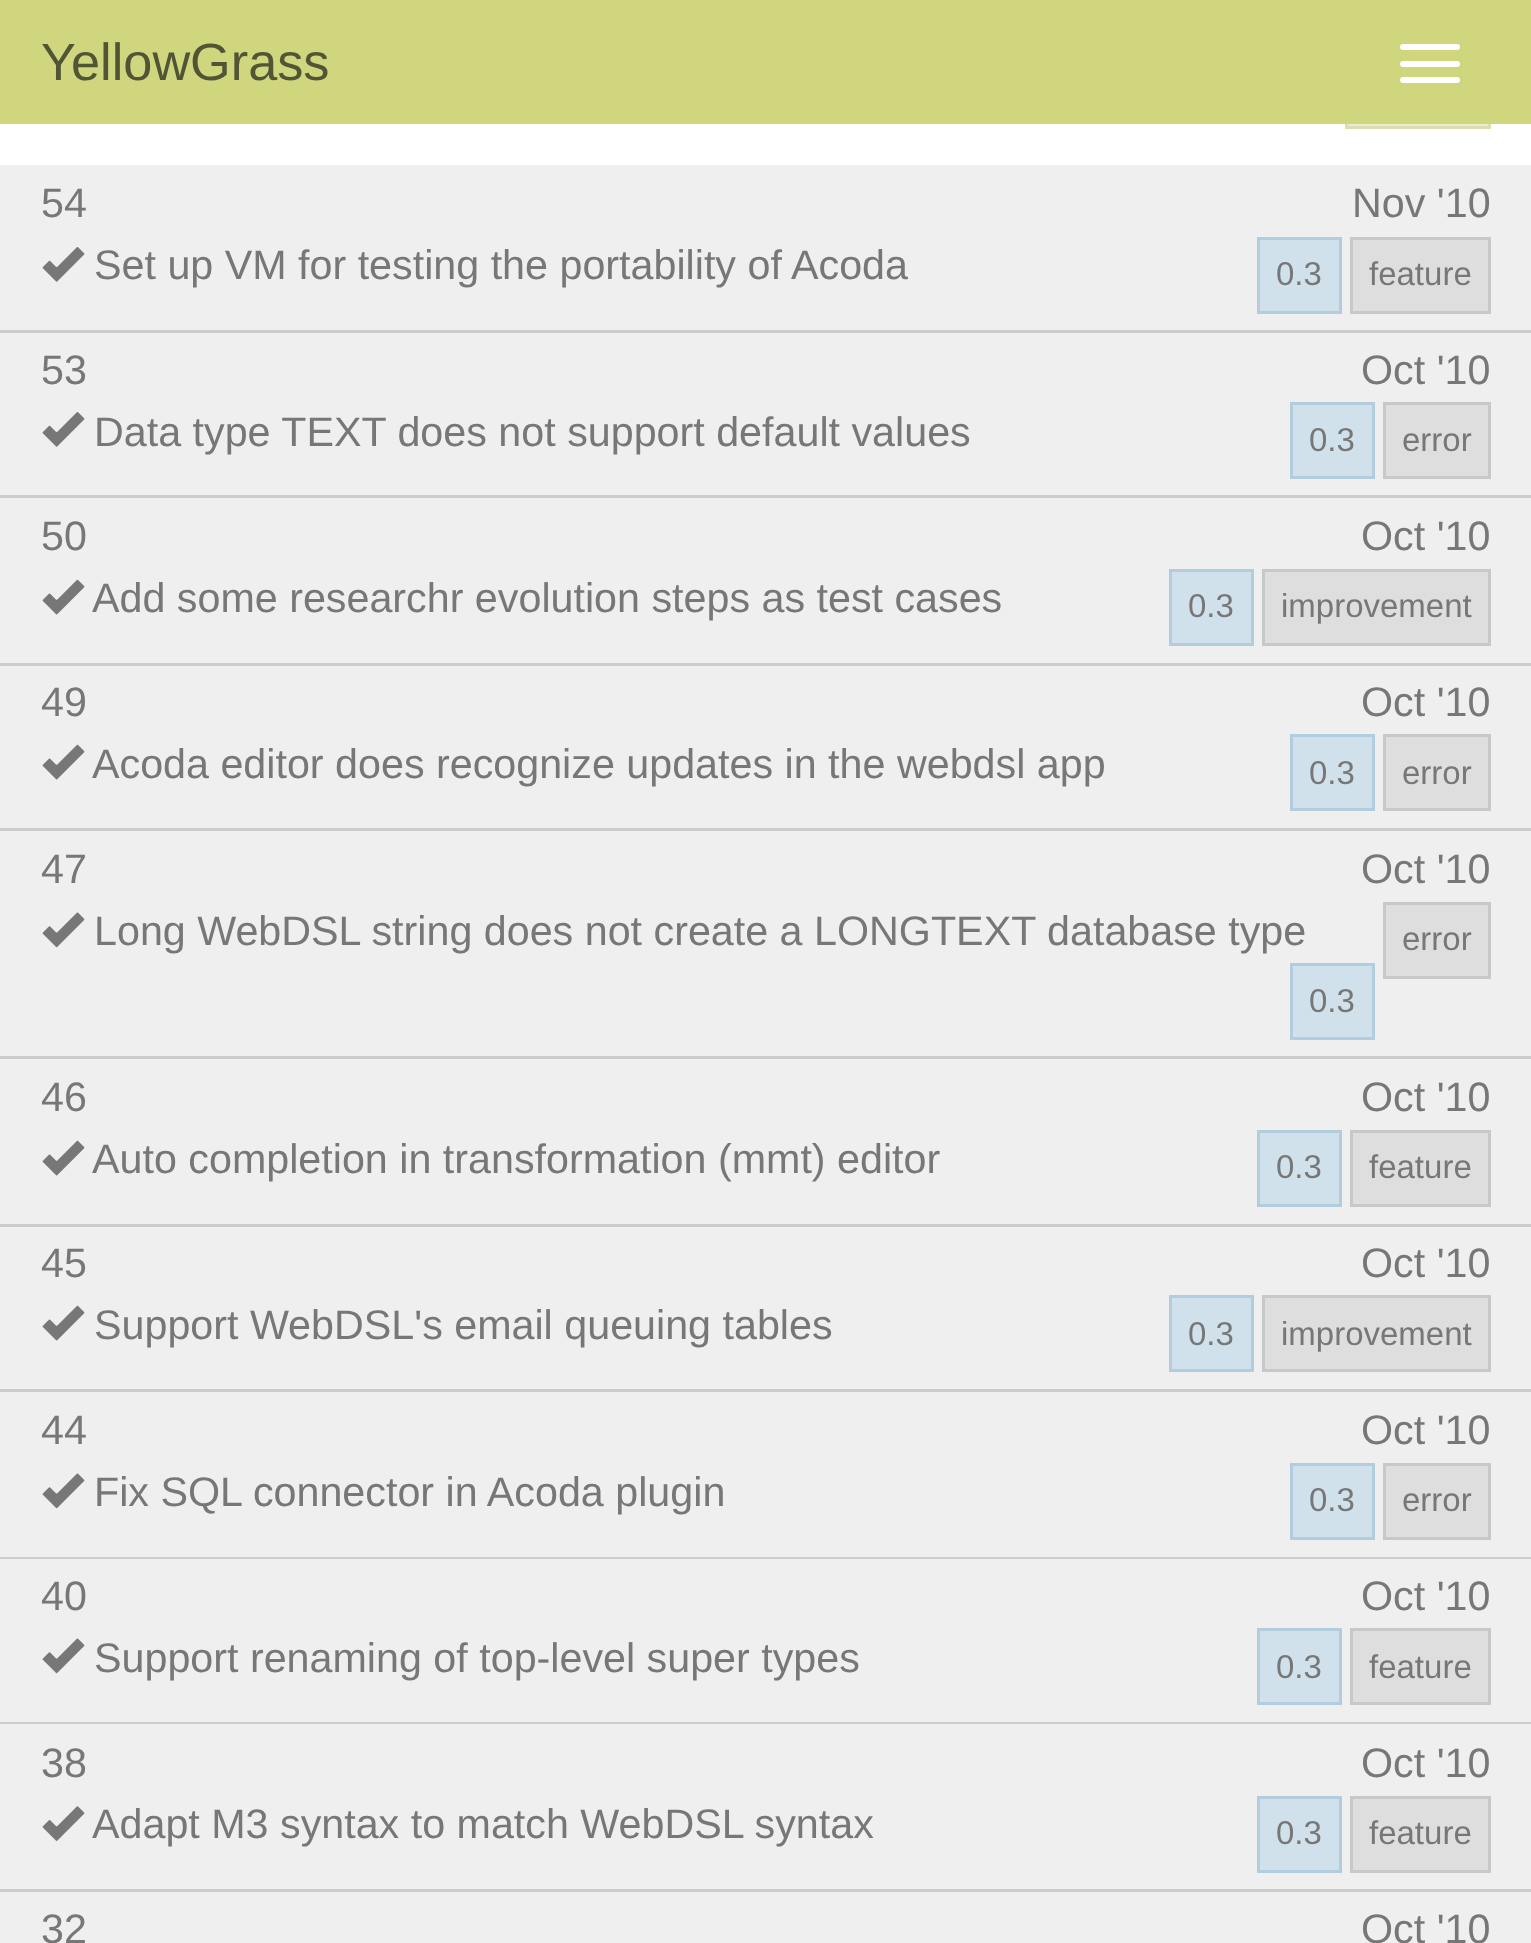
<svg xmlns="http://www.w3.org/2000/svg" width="1531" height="1943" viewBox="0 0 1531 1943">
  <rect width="100%" height="100%" fill="#fff"/>
  <path d="M1348 124h140v2H1348z" fill="#ebebd1"/>
  <path d="M1346.5 53.5h143v74H1346.5z" fill="none" stroke="#deddb2" stroke-width="3"/>
  <path d="M0 0h1531v124H0z" fill="#cfd67e"/>
  <rect x="1400" y="44" width="60" height="6" rx="3" fill="#fff"/>
  <rect x="1400" y="61" width="60" height="6" rx="3" fill="#fff"/>
  <rect x="1400" y="77" width="60" height="6" rx="3" fill="#fff"/>
  <path d="M0 165h1531v165H0z" fill="#efefef"/>
  <path d="M0 330h1531v3H0z" fill="#ccc"/>
  <image x="42" y="247" width="43" height="35" href="img/1.png"/>
  <path d="M1258.5 238.5h82v74H1258.5z" fill="#d1e1eb" stroke="#b2cdde" stroke-width="3"/>
  <path d="M1351.5 238.5h138v74H1351.5z" fill="#dedede" stroke="#c8c8c8" stroke-width="3"/>
  <path d="M0 333h1531v162H0z" fill="#efefef"/>
  <path d="M0 495h1531v3H0z" fill="#ccc"/>
  <image x="42" y="412" width="43" height="35" href="img/1.png"/>
  <path d="M1291.5 403.5h82v74H1291.5z" fill="#d1e1eb" stroke="#b2cdde" stroke-width="3"/>
  <path d="M1384.5 403.5h105v74H1384.5z" fill="#dedede" stroke="#c8c8c8" stroke-width="3"/>
  <path d="M0 498h1531v165H0z" fill="#efefef"/>
  <path d="M0 663h1531v3H0z" fill="#ccc"/>
  <image x="42" y="579" width="43" height="36" href="img/2.png"/>
  <path d="M1170.5 570.5h82v74H1170.5z" fill="#d1e1eb" stroke="#b2cdde" stroke-width="3"/>
  <path d="M1263.5 570.5h226v74H1263.5z" fill="#dedede" stroke="#c8c8c8" stroke-width="3"/>
  <path d="M0 666h1531v162H0z" fill="#efefef"/>
  <path d="M0 828h1531v3H0z" fill="#ccc"/>
  <image x="42" y="744" width="43" height="36" href="img/2.png"/>
  <path d="M1291.5 735.5h82v74H1291.5z" fill="#d1e1eb" stroke="#b2cdde" stroke-width="3"/>
  <path d="M1384.5 735.5h105v74H1384.5z" fill="#dedede" stroke="#c8c8c8" stroke-width="3"/>
  <path d="M0 831h1531v225H0z" fill="#efefef"/>
  <path d="M0 1056h1531v3H0z" fill="#ccc"/>
  <image x="42" y="912" width="43" height="36" href="img/3.png"/>
  <path d="M1384.5 903.5h105v74H1384.5z" fill="#dedede" stroke="#c8c8c8" stroke-width="3"/>
  <path d="M1291.5 964.5h82v74H1291.5z" fill="#d1e1eb" stroke="#b2cdde" stroke-width="3"/>
  <path d="M0 1059h1531v165H0z" fill="#efefef"/>
  <path d="M0 1224h1531v3H0z" fill="#ccc"/>
  <image x="42" y="1140" width="43" height="36" href="img/2.png"/>
  <path d="M1258.5 1131.5h82v74H1258.5z" fill="#d1e1eb" stroke="#b2cdde" stroke-width="3"/>
  <path d="M1351.5 1131.5h138v74H1351.5z" fill="#dedede" stroke="#c8c8c8" stroke-width="3"/>
  <path d="M0 1227h1531v162H0z" fill="#efefef"/>
  <path d="M0 1389h1531v3H0z" fill="#ccc"/>
  <image x="42" y="1305" width="43" height="36" href="img/2.png"/>
  <path d="M1170.5 1296.5h82v74H1170.5z" fill="#d1e1eb" stroke="#b2cdde" stroke-width="3"/>
  <path d="M1263.5 1296.5h226v74H1263.5z" fill="#dedede" stroke="#c8c8c8" stroke-width="3"/>
  <path d="M0 1392h1531v165H0z" fill="#efefef"/>
  <path d="M0 1557h1531v2H0z" fill="#ccc"/>
  <image x="42" y="1473" width="43" height="36" href="img/3.png"/>
  <path d="M1291.5 1464.5h82v74H1291.5z" fill="#d1e1eb" stroke="#b2cdde" stroke-width="3"/>
  <path d="M1384.5 1464.5h105v74H1384.5z" fill="#dedede" stroke="#c8c8c8" stroke-width="3"/>
  <path d="M0 1559h1531v163H0z" fill="#efefef"/>
  <path d="M0 1722h1531v2H0z" fill="#ccc"/>
  <image x="42" y="1638" width="43" height="36" href="img/3.png"/>
  <path d="M1258.5 1629.5h82v74H1258.5z" fill="#d1e1eb" stroke="#b2cdde" stroke-width="3"/>
  <path d="M1351.5 1629.5h138v74H1351.5z" fill="#dedede" stroke="#c8c8c8" stroke-width="3"/>
  <path d="M0 1724h1531v165H0z" fill="#efefef"/>
  <path d="M0 1889h1531v3H0z" fill="#ccc"/>
  <image x="42" y="1806" width="43" height="35" href="img/4.png"/>
  <path d="M1258.5 1797.5h82v74H1258.5z" fill="#d1e1eb" stroke="#b2cdde" stroke-width="3"/>
  <path d="M1351.5 1797.5h138v74H1351.5z" fill="#dedede" stroke="#c8c8c8" stroke-width="3"/>
  <path d="M0 1892h1531v51H0z" fill="#efefef"/>
  <text x="41" y="80" font-family="Liberation Sans" font-size="52.25" fill="#525436">YellowGrass</text>
  <g font-family="Liberation Sans" font-size="41.25" fill="#777">
    <text x="41" y="217">54</text>
    <text x="1352" y="217">Nov '10</text>
    <text x="94" y="279">Set up VM for testing the portability of Acoda</text>
  </g>
  <g font-family="Liberation Sans" font-size="33" fill="#777">
    <text x="1276" y="285">0.3</text>
    <text x="1369" y="285">feature</text>
  </g>
  <g font-family="Liberation Sans" font-size="41.25" fill="#777">
    <text x="41" y="384">53</text>
    <text x="1361" y="384">Oct '10</text>
    <text x="94" y="446">Data type TEXT does not support default values</text>
  </g>
  <g font-family="Liberation Sans" font-size="33" fill="#777">
    <text x="1309" y="451">0.3</text>
    <text x="1402" y="451">error</text>
  </g>
  <g font-family="Liberation Sans" font-size="41.25" fill="#777">
    <text x="41" y="550">50</text>
    <text x="1361" y="550">Oct '10</text>
    <text x="92" y="612">Add some researchr evolution steps as test cases</text>
  </g>
  <g font-family="Liberation Sans" font-size="33" fill="#777">
    <text x="1188" y="617">0.3</text>
    <text x="1281" y="617">improvement</text>
  </g>
  <g font-family="Liberation Sans" font-size="41.25" fill="#777">
    <text x="41" y="716">49</text>
    <text x="1361" y="716">Oct '10</text>
    <text x="92" y="778">Acoda editor does recognize updates in the webdsl app</text>
  </g>
  <g font-family="Liberation Sans" font-size="33" fill="#777">
    <text x="1309" y="784">0.3</text>
    <text x="1402" y="784">error</text>
  </g>
  <g font-family="Liberation Sans" font-size="41.25" fill="#777">
    <text x="41" y="883">47</text>
    <text x="1361" y="883">Oct '10</text>
    <text x="94" y="945">Long WebDSL string does not create a LONGTEXT database type</text>
  </g>
  <g font-family="Liberation Sans" font-size="33" fill="#777">
    <text x="1402" y="950">error</text>
    <text x="1309" y="1012">0.3</text>
  </g>
  <g font-family="Liberation Sans" font-size="41.25" fill="#777">
    <text x="41" y="1111">46</text>
    <text x="1361" y="1111">Oct '10</text>
    <text x="92" y="1173">Auto completion in transformation (mmt) editor</text>
  </g>
  <g font-family="Liberation Sans" font-size="33" fill="#777">
    <text x="1276" y="1178">0.3</text>
    <text x="1369" y="1178">feature</text>
  </g>
  <g font-family="Liberation Sans" font-size="41.25" fill="#777">
    <text x="41" y="1277">45</text>
    <text x="1361" y="1277">Oct '10</text>
    <text x="94" y="1339">Support WebDSL's email queuing tables</text>
  </g>
  <g font-family="Liberation Sans" font-size="33" fill="#777">
    <text x="1188" y="1345">0.3</text>
    <text x="1281" y="1345">improvement</text>
  </g>
  <g font-family="Liberation Sans" font-size="41.25" fill="#777">
    <text x="41" y="1444">44</text>
    <text x="1361" y="1444">Oct '10</text>
    <text x="94" y="1506">Fix SQL connector in Acoda plugin</text>
  </g>
  <g font-family="Liberation Sans" font-size="33" fill="#777">
    <text x="1309" y="1511">0.3</text>
    <text x="1402" y="1511">error</text>
  </g>
  <g font-family="Liberation Sans" font-size="41.25" fill="#777">
    <text x="41" y="1610">40</text>
    <text x="1361" y="1610">Oct '10</text>
    <text x="94" y="1672">Support renaming of top-level super types</text>
  </g>
  <g font-family="Liberation Sans" font-size="33" fill="#777">
    <text x="1276" y="1678">0.3</text>
    <text x="1369" y="1678">feature</text>
  </g>
  <g font-family="Liberation Sans" font-size="41.25" fill="#777">
    <text x="41" y="1777">38</text>
    <text x="1361" y="1777">Oct '10</text>
    <text x="92" y="1838">Adapt M3 syntax to match WebDSL syntax</text>
  </g>
  <g font-family="Liberation Sans" font-size="33" fill="#777">
    <text x="1276" y="1844">0.3</text>
    <text x="1369" y="1844">feature</text>
  </g>
  <g font-family="Liberation Sans" font-size="41.25" fill="#777">
    <text x="41" y="1943">32</text>
    <text x="1361" y="1943">Oct '10</text>
  </g>
</svg>
